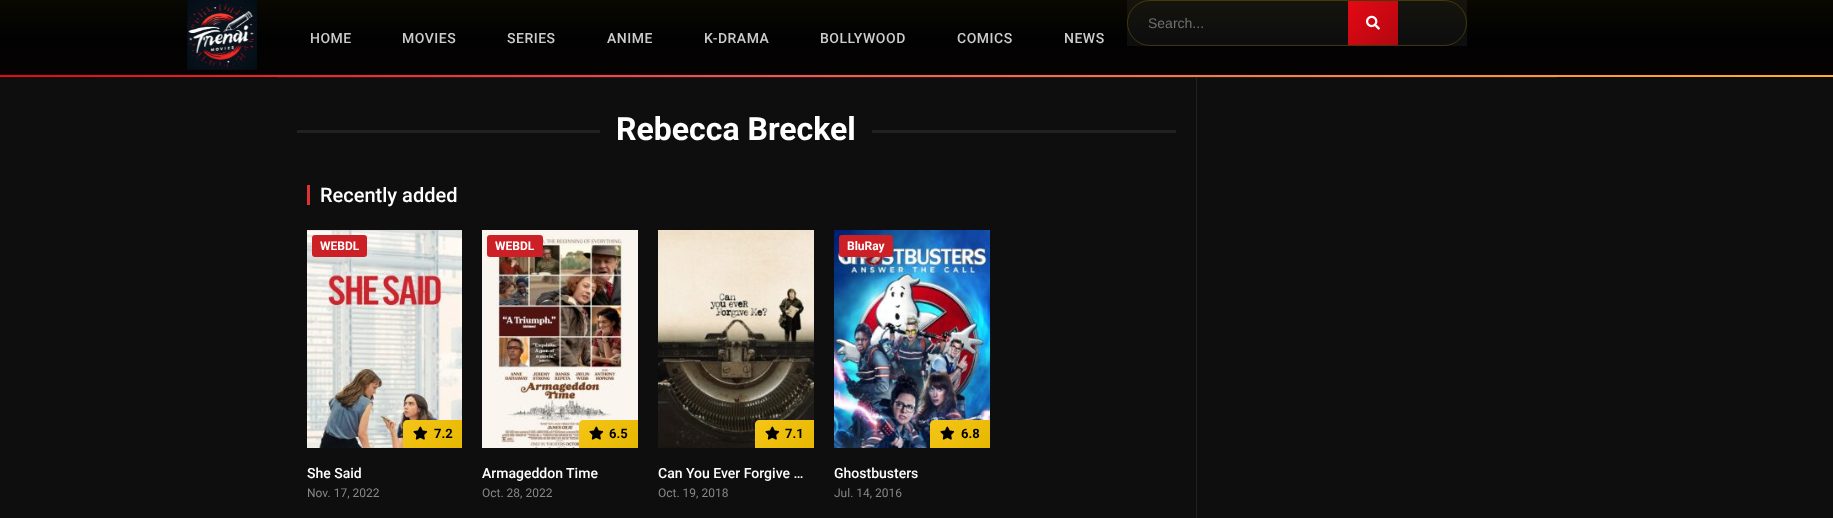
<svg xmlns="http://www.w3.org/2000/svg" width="1833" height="518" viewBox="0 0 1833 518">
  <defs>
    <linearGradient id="g1" gradientUnits="userSpaceOnUse" x1="917" y1="0" x2="917" y2="75"><stop offset="0" stop-color="#090801"/><stop offset="0.5" stop-color="#020202"/><stop offset="1" stop-color="#060202"/></linearGradient>
    <linearGradient id="g2" gradientUnits="userSpaceOnUse" x1="1350" y1="-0.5" x2="1397" y2="47"><stop offset="0" stop-color="#e50914"/><stop offset="1" stop-color="#b20710"/></linearGradient>
    <linearGradient id="g3" gradientUnits="userSpaceOnUse" x1="0" y1="76" x2="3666" y2="76"><stop offset="0" stop-color="#e50914"/><stop offset="0.2" stop-color="#ff4d4d"/><stop offset="0.4" stop-color="#ff8c42"/><stop offset="0.6" stop-color="#ffd700"/><stop offset="0.8" stop-color="#ff8c42"/><stop offset="1" stop-color="#e50914"/></linearGradient>
    <linearGradient id="g4" gradientUnits="userSpaceOnUse" x1="411" y1="412" x2="454" y2="456"><stop offset="0" stop-color="#f5c518"/><stop offset="1" stop-color="#e6b800"/></linearGradient>
    <linearGradient id="g5" gradientUnits="userSpaceOnUse" x1="587" y1="412" x2="630" y2="456"><stop offset="0" stop-color="#f5c518"/><stop offset="1" stop-color="#e6b800"/></linearGradient>
    <linearGradient id="g6" gradientUnits="userSpaceOnUse" x1="763" y1="412" x2="806" y2="456"><stop offset="0" stop-color="#f5c518"/><stop offset="1" stop-color="#e6b800"/></linearGradient>
    <linearGradient id="g7" gradientUnits="userSpaceOnUse" x1="938" y1="412" x2="982" y2="456"><stop offset="0" stop-color="#f5c518"/><stop offset="1" stop-color="#e6b800"/></linearGradient>
  </defs>
  <rect width="100%" height="100%" fill="#0e0e0e"/>
  <path d="M0 0h1833v75H0z" fill="url(#g1)"/>
  <image x="187" y="0" width="70" height="70" href="img/1.png"/>
  <path d="M1127 0h340v46H1127z" fill="#ffffff0d"/>
  <rect x="1127.5" y="0.5" width="339" height="45" rx="22.5" fill="none" stroke="#ffd70033"/>
  <path d="M1348 1h50v44H1348z" fill="url(#g2)"/>
  <image x="1366" y="15" width="14" height="15" href="img/2.png"/>
  <path d="M0 75h1833v2H0z" fill="url(#g3)"/>
  <path d="M277 77h1280v1H277z" fill="#1f1f1f"/>
  <path d="M1196 78h1v440H1196z" fill="#212121"/>
  <path d="M297 130h303v3H297z" fill="#212121"/>
  <path d="M872 130h304v3H872z" fill="#212121"/>
  <path d="M307 185h3v20H307z" fill="#d33"/>
  <image x="307" y="230" width="155" height="218" href="img/3.png"/>
  <rect x="312" y="235" width="55" height="22" rx="3" fill="#cd2026"/>
  <path d="M407 420H462V448H403V424C403 422 405 420 407 420Z" fill="url(#g4)"/>
  <image x="413" y="426" width="15" height="14" href="img/4.png"/>
  <image x="482" y="230" width="156" height="218" href="img/5.png"/>
  <rect x="487" y="235" width="56" height="22" rx="3" fill="#cd2026"/>
  <path d="M583 420H638V448H579V424C579 422 581 420 583 420Z" fill="url(#g5)"/>
  <image x="589" y="426" width="15" height="14" href="img/4.png"/>
  <image x="658" y="230" width="156" height="218" href="img/6.png"/>
  <path d="M759 420H814V448H755V424C755 422 757 420 759 420Z" fill="url(#g6)"/>
  <image x="765" y="426" width="15" height="14" href="img/4.png"/>
  <image x="834" y="230" width="156" height="218" href="img/7.png"/>
  <rect x="839" y="235" width="54" height="22" rx="3" fill="#cd2026"/>
  <path d="M934 420H990V448H930V424C930 422 932 420 934 420Z" fill="url(#g7)"/>
  <image x="940" y="426" width="15" height="14" href="img/8.png"/>
  <text x="1148" y="28" font-family="Liberation Sans" font-size="14" fill="#70706f">Search...</text>
  <g font-family="Roboto" font-size="14" font-weight="500" letter-spacing="0.5" fill="#ccc">
    <text x="310" y="43">HOME</text>
    <text x="402" y="43">MOVIES</text>
    <text x="507" y="43">SERIES</text>
    <text x="607" y="43">ANIME</text>
    <text x="704" y="43">K-DRAMA</text>
    <text x="820" y="43">BOLLYWOOD</text>
    <text x="957" y="43">COMICS</text>
    <text x="1064" y="43">NEWS</text>
  </g>
  <text x="616" y="140" font-family="Roboto" font-size="32" font-weight="bold" fill="#fff">Rebecca Breckel</text>
  <text x="320" y="202" font-family="Roboto" font-size="20" font-weight="500" fill="#fff">Recently added</text>
  <text x="320" y="250" font-family="Roboto" font-size="12" font-weight="bold" fill="#fff">WEBDL</text>
  <text x="434" y="438" font-family="Roboto" font-size="13" font-weight="bold" fill="#000">7.2</text>
  <text x="307" y="478" font-family="Roboto" font-size="14" font-weight="500" fill="#fff">She Said</text>
  <text x="307" y="497" font-family="Roboto" font-size="12" fill="#878787">Nov. 17, 2022</text>
  <text x="495" y="250" font-family="Roboto" font-size="12" font-weight="bold" fill="#fff">WEBDL</text>
  <text x="609" y="438" font-family="Roboto" font-size="13" font-weight="bold" fill="#000">6.5</text>
  <text x="482" y="478" font-family="Roboto" font-size="14" font-weight="500" fill="#fff">Armageddon Time</text>
  <text x="482" y="497" font-family="Roboto" font-size="12" fill="#878787">Oct. 28, 2022</text>
  <text x="785" y="438" font-family="Roboto" font-size="13" font-weight="bold" fill="#000">7.1</text>
  <text x="658" y="478" font-family="Roboto" font-size="14" font-weight="500" fill="#fff">Can You Ever Forgive …</text>
  <text x="658" y="497" font-family="Roboto" font-size="12" fill="#878787">Oct. 19, 2018</text>
  <text x="847" y="250" font-family="Roboto" font-size="12" font-weight="bold" fill="#fff">BluRay</text>
  <text x="961" y="438" font-family="Roboto" font-size="13" font-weight="bold" fill="#000">6.8</text>
  <text x="834" y="478" font-family="Roboto" font-size="14" font-weight="500" fill="#fff">Ghostbusters</text>
  <text x="834" y="497" font-family="Roboto" font-size="12" fill="#878787">Jul. 14, 2016</text>
</svg>
